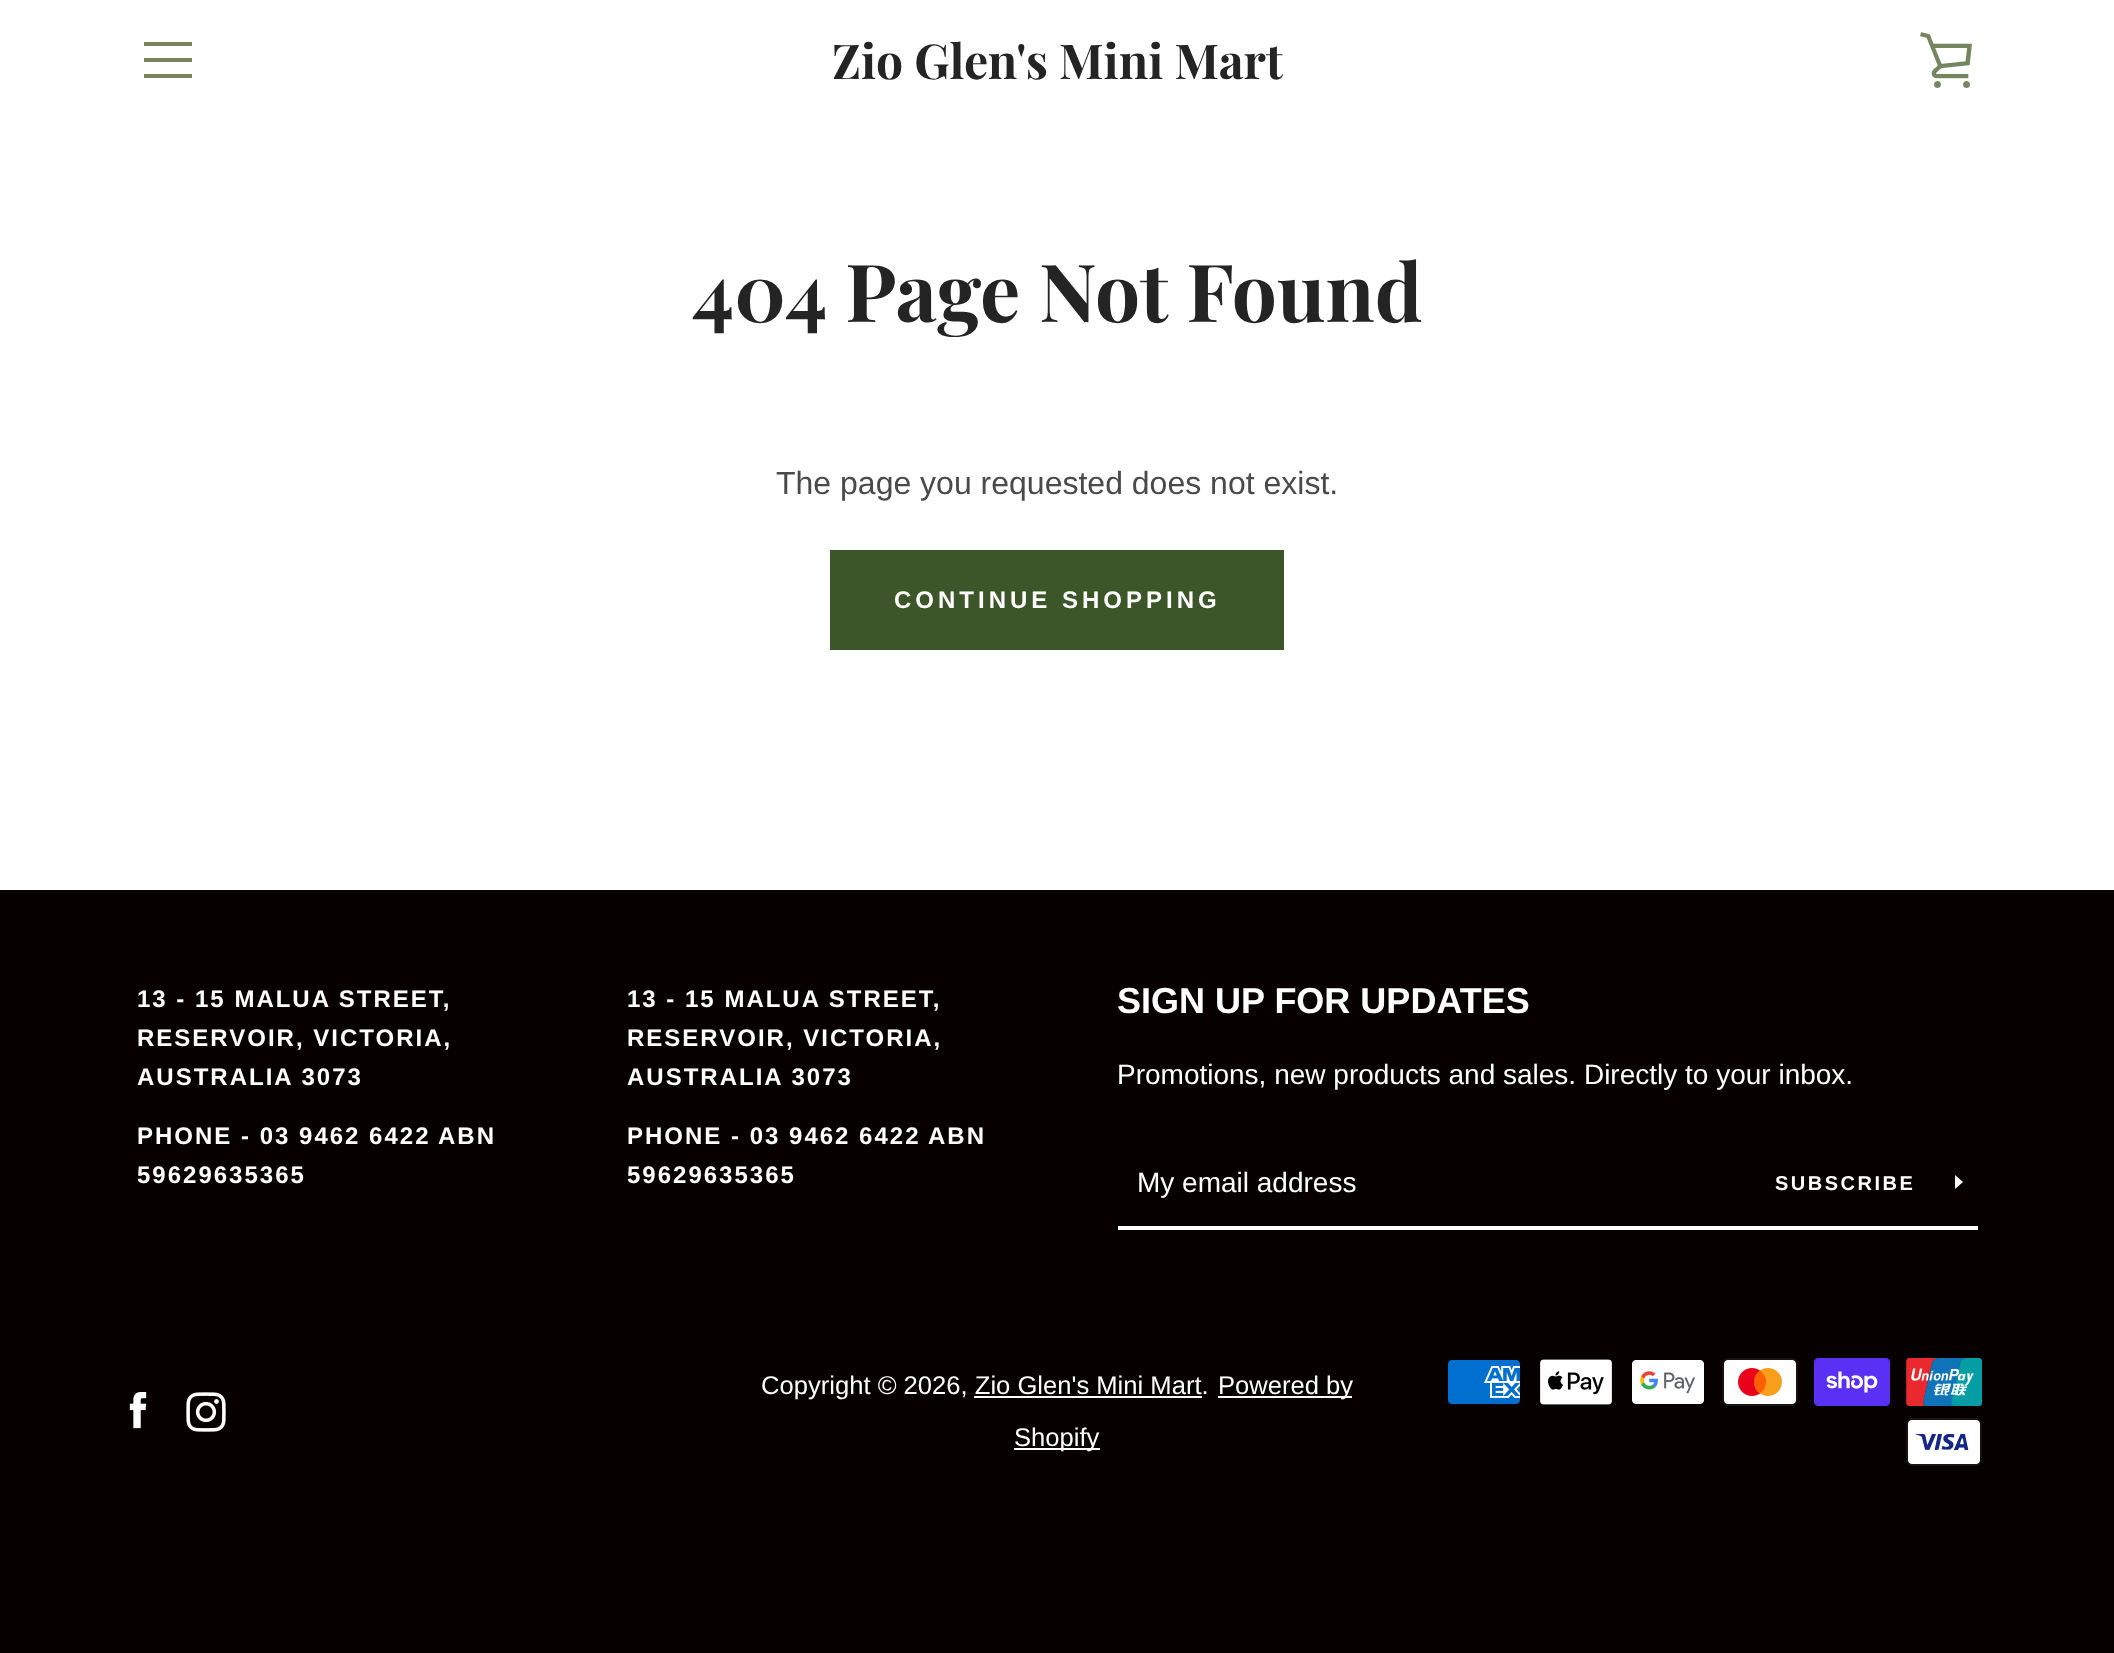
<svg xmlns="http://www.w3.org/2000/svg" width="2114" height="1653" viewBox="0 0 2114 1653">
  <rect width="100%" height="100%" fill="#070000"/>
  <path d="M0 0h2114v890H0z" fill="#fff"/>
  <path d="M144 42h48v4H144z" fill="#758560"/>
  <path d="M144 58h48v4H144z" fill="#758560"/>
  <path d="M144 74h48v4H144z" fill="#758560"/>
  <image x="1920" y="32" width="52" height="56" href="img/1.png"/>
  <path d="M830 550h454v100H830z" fill="#3c5629"/>
  <path d="M1118 1226h860v4H1118z" fill="#fff"/>
  <path d="M1963 1182L1955 1189V1175Z" fill="#fff"/>
  <image x="129" y="1392" width="18" height="37" href="img/2.png"/>
  <image x="186" y="1392" width="40" height="40" href="img/3.png"/>
  <path d="M974 1396h228v2H974z" fill="#fff"/>
  <path d="M1218 1396h134v2H1218z" fill="#fff"/>
  <path d="M1014 1448h86v2H1014z" fill="#fff"/>
  <image x="1448" y="1360" width="72" height="44" href="img/4.png"/>
  <image x="1539" y="1358" width="74" height="48" href="img/5.png"/>
  <image x="1632" y="1360" width="72" height="44" href="img/6.png"/>
  <image x="1722" y="1358" width="76" height="48" href="img/7.png"/>
  <image x="1814" y="1358" width="76" height="48" href="img/8.png"/>
  <image x="1906" y="1358" width="76" height="48" href="img/9.png"/>
  <image x="1906" y="1418" width="76" height="48" href="img/10.png"/>
  <text x="832" y="79" font-family="Playfair Display" font-size="48" font-weight="bold" fill="#242424">Zio Glen's Mini Mart</text>
  <text x="692" y="322" font-family="Playfair Display" font-size="80" font-weight="bold" fill="#242424">404 Page Not Found</text>
  <text x="776" y="494" font-family="Liberation Sans" font-size="32" fill="#4a4a4a">The page you requested does not exist.</text>
  <text x="894" y="608" font-family="Liberation Sans" font-size="24" font-weight="bold" letter-spacing="4" fill="#fff">CONTINUE SHOPPING</text>
  <g font-family="Liberation Sans" font-size="24" font-weight="bold" letter-spacing="2" fill="#fff">
    <text x="137" y="1007">13 - 15 MALUA STREET,</text>
    <text x="137" y="1046">RESERVOIR, VICTORIA,</text>
    <text x="137" y="1085">AUSTRALIA 3073</text>
    <text x="137" y="1144">PHONE - 03 9462 6422</text>
    <text x="438" y="1144">ABN</text>
    <text x="137" y="1183">59629635365</text>
    <text x="627" y="1007">13 - 15 MALUA STREET,</text>
    <text x="627" y="1046">RESERVOIR, VICTORIA,</text>
    <text x="627" y="1085">AUSTRALIA 3073</text>
    <text x="627" y="1144">PHONE - 03 9462 6422</text>
    <text x="928" y="1144">ABN</text>
    <text x="627" y="1183">59629635365</text>
  </g>
  <text x="1117" y="1013" font-family="Liberation Sans" font-size="36" font-weight="bold" fill="#fff">SIGN UP FOR UPDATES</text>
  <g font-family="Liberation Sans" font-size="28" fill="#fff">
    <text x="1117" y="1084">Promotions, new products and sales. Directly to your inbox.</text>
    <text x="1137" y="1192">My email address</text>
  </g>
  <text x="1775" y="1190" font-family="Liberation Sans" font-size="20" font-weight="bold" letter-spacing="2.5" fill="#fff">SUBSCRIBE</text>
  <g font-family="Liberation Sans" font-size="25.6" fill="#fff">
    <text x="761" y="1394">Copyright © 2026, Zio Glen's Mini Mart.</text>
    <text x="1218" y="1394">Powered by</text>
    <text x="1014" y="1446">Shopify</text>
  </g>
</svg>
